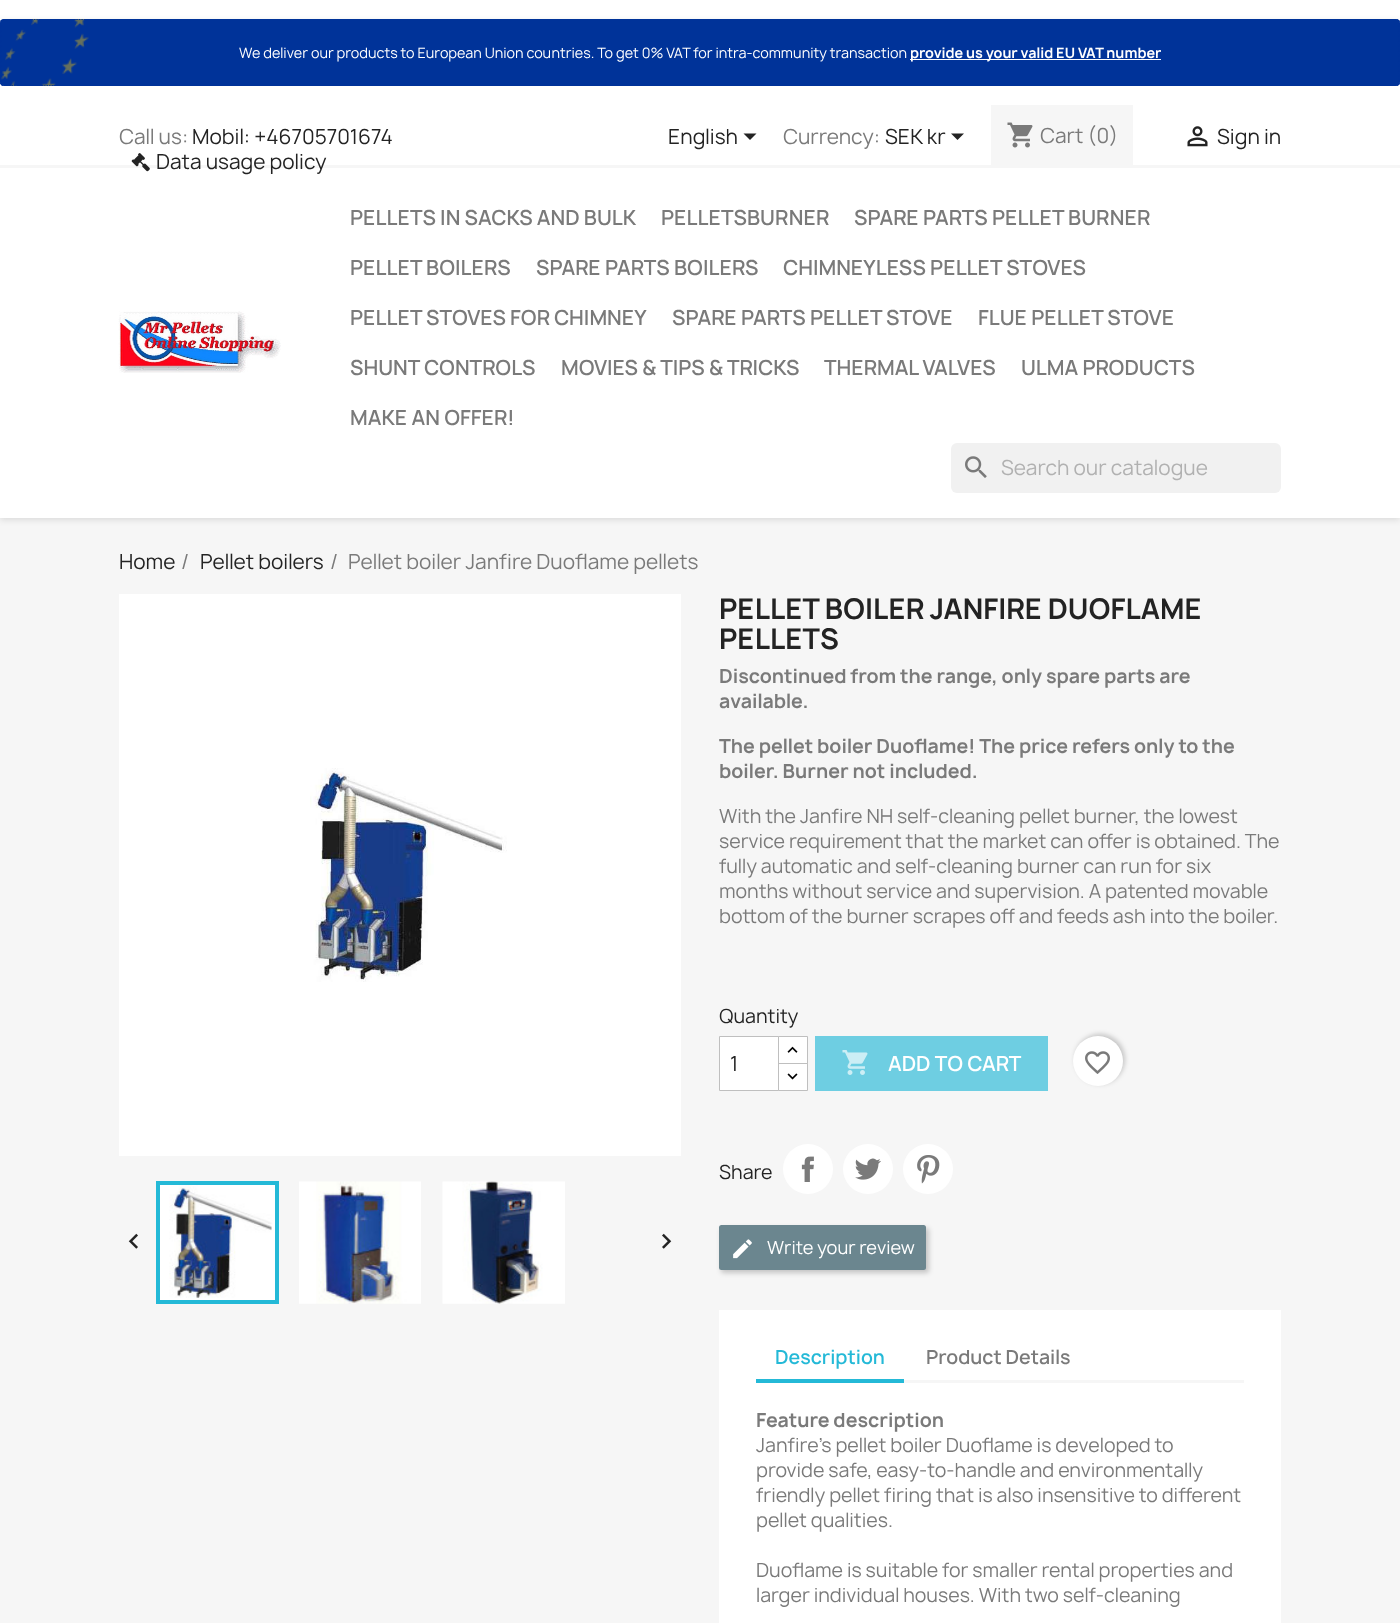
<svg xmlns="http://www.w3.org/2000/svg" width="1400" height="1623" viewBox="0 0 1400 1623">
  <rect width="100%" height="100%" fill="#fff"/>
  <path d="M0 518h1400v1105H0z" fill="#f6f6f6"/>
  <path d="M0 21h1400v499H0z" fill="#0000001c" filter="blur(3px)"/>
  <path d="M0 19h1400v499H0z" fill="#fff"/>
  <rect y="19" width="1400" height="67" rx="4" fill="#039"/>
  <image x="1" y="18" width="88" height="69" href="img/1.png"/>
  <path d="M4 19.5H1396C1398 19.5 1399.5 21 1399.5 22.5V82.5C1399.5 84 1398 85.5 1396 85.5H4C2 85.5 .5 84 .5 82.5V22.5C.5 21 2 19.5 4 19.5Z" fill="none" stroke="#039" stroke-width="1.2" stroke-dasharray="1.25 1.25"/>
  <path d="M910 59h251v1H910z" fill="#fff"/>
  <path d="M0 165h1400v3H0z" fill="#f6f6f6"/>
  <image x="131" y="153" width="19" height="19" href="img/2.png"/>
  <path d="M743.5 133.5H756.5L750 140Z" fill="#232323"/>
  <path d="M951 133.5H964L957.5 140Z" fill="#232323"/>
  <path d="M991 105h142v60H991z" fill="#f6f6f6"/>
  <image x="1007" y="122" width="26" height="26" href="img/3.png"/>
  <image x="1187" y="126" width="21" height="21" href="img/4.png"/>
  <image x="118" y="311" width="163" height="62" href="img/5.png"/>
  <rect x="951" y="443" width="330" height="50" rx="6" fill="#f1f1f1"/>
  <image x="965" y="456" width="22" height="22" href="img/6.png"/>
  <path d="M119 594h562v562H119z" fill="#fff"/>
  <image x="310" y="768" width="197" height="214" href="img/7.png"/>
  <path d="M158 1183h119v119H158z" fill="none" stroke="#24b9d7" stroke-width="4"/>
  <image x="299" y="1181" width="122" height="123" href="img/8.png"/>
  <image x="442" y="1181" width="123" height="123" href="img/9.png"/>
  <image x="160" y="1185" width="115" height="115" href="img/10.png"/>
  <image x="128" y="1233" width="10" height="16" href="img/11.png"/>
  <image x="662" y="1233" width="10" height="16" href="img/12.png"/>
  <path d="M779 1037h28v26H779z" fill="#fff"/>
  <path d="M778.5 1036.5h29v28H778.5z" fill="none" stroke="#bfbfbf"/>
  <path d="M778.5 1063.5h29v27H778.5z" fill="#fff" stroke="#bfbfbf"/>
  <path d="M719.5 1036.5h59v54H719.5z" fill="#fff" stroke="#bfbfbf"/>
  <image x="787" y="1046" width="11" height="7" href="img/13.png"/>
  <image x="787" y="1073" width="11" height="7" href="img/14.png"/>
  <path d="M815 1036h233v55H815z" fill="#6ecee2"/>
  <image x="842" y="1050" width="26" height="25" href="img/15.png"/>
  <rect x="1075" y="1034" width="50" height="50" rx="25" fill="#00000033" filter="blur(2.5px)"/>
  <circle cx="1098" cy="1061" r="25" fill="#fff"/>
  <image x="1085" y="1051" width="25" height="23" href="img/16.png"/>
  <circle cx="808" cy="1169" r="25" fill="#fff"/>
  <image x="801" y="1156" width="13" height="26" href="img/17.png"/>
  <circle cx="868" cy="1169" r="25" fill="#fff"/>
  <image x="855" y="1158" width="26" height="22" href="img/18.png"/>
  <circle cx="928" cy="1169" r="25" fill="#fff"/>
  <image x="917" y="1155" width="23" height="29" href="img/19.png"/>
  <rect x="721" y="1228" width="208" height="45" rx="2.5" fill="#00000033" filter="blur(2.5px)"/>
  <rect x="719" y="1225" width="207" height="45" rx="2.5" fill="#6b868f"/>
  <image x="733" y="1239" width="19" height="20" href="img/20.png"/>
  <path d="M719 1310h562v313H719z" fill="#fff"/>
  <path d="M904 1380h340v3H904z" fill="#f6f6f6"/>
  <path d="M756 1379h148v4H756z" fill="#24b9d7"/>
  <text x="239" y="58" font-family="Manrope" font-size="13.75" fill="#fff">We deliver our products to European Union countries. To get 0% VAT for intra-community transaction</text>
  <text x="910" y="58" font-family="Manrope" font-size="13.75" font-weight="bold" fill="#fff">provide us your valid EU VAT number</text>
  <text x="119" y="144" font-family="Manrope" font-size="20" fill="#7a7a7a">Call us:</text>
  <g font-family="Manrope" font-size="20" fill="#232323">
    <text x="192" y="144">Mobil: +46705701674</text>
    <text x="156" y="169">Data usage policy</text>
    <text x="668" y="144">English</text>
  </g>
  <text x="783" y="144" font-family="Manrope" font-size="20" fill="#7a7a7a">Currency:</text>
  <text x="885" y="144" font-family="Manrope" font-size="20" fill="#232323">SEK kr</text>
  <text x="1040" y="143" font-family="Manrope" font-size="20" fill="#7a7a7a">Cart (0)</text>
  <text x="1217" y="144" font-family="Manrope" font-size="20" fill="#232323">Sign in</text>
  <g font-family="Manrope" font-size="20" font-weight="600" fill="#7a7a7a">
    <text x="350" y="225">PELLETS IN SACKS AND BULK</text>
    <text x="661" y="225">PELLETSBURNER</text>
    <text x="854" y="225">SPARE PARTS PELLET BURNER</text>
    <text x="350" y="275">PELLET BOILERS</text>
    <text x="536" y="275">SPARE PARTS BOILERS</text>
    <text x="783" y="275">CHIMNEYLESS PELLET STOVES</text>
    <text x="350" y="325">PELLET STOVES FOR CHIMNEY</text>
    <text x="672" y="325">SPARE PARTS PELLET STOVE</text>
    <text x="978" y="325">FLUE PELLET STOVE</text>
    <text x="350" y="375">SHUNT CONTROLS</text>
    <text x="561" y="375">MOVIES &amp; TIPS &amp; TRICKS</text>
    <text x="824" y="375">THERMAL VALVES</text>
    <text x="1021" y="375">ULMA PRODUCTS</text>
    <text x="350" y="425">MAKE AN OFFER!</text>
  </g>
  <text x="1001" y="475" font-family="Manrope" font-size="20" fill="#b1b1b1">Search our catalogue</text>
  <text x="119" y="569" font-family="Manrope" font-size="20" fill="#232323">Home</text>
  <text x="181" y="569" font-family="Manrope" font-size="20" fill="#7a7a7a">/</text>
  <text x="200" y="569" font-family="Manrope" font-size="20" fill="#232323">Pellet boilers</text>
  <g font-family="Manrope" font-size="20" fill="#7a7a7a">
    <text x="330" y="569">/</text>
    <text x="348" y="569">Pellet boiler Janfire Duoflame pellets</text>
  </g>
  <g font-family="Manrope" font-size="27.5" font-weight="bold" fill="#232323">
    <text x="719" y="619">PELLET BOILER JANFIRE DUOFLAME</text>
    <text x="719" y="649">PELLETS</text>
  </g>
  <g font-family="Manrope" font-size="18.75" font-weight="bold" fill="#7a7a7a">
    <text x="719" y="683">Discontinued from the range, only spare parts are</text>
    <text x="719" y="708">available.</text>
    <text x="719" y="753">The pellet boiler Duoflame! The price refers only to the</text>
    <text x="719" y="778">boiler. Burner not included.</text>
  </g>
  <g font-family="Manrope" font-size="18.75" fill="#7a7a7a">
    <text x="719" y="823">With the Janfire NH self-cleaning pellet burner, the lowest</text>
    <text x="719" y="848">service requirement that the market can offer is obtained. The</text>
    <text x="719" y="873">fully automatic and self-cleaning burner can run for six</text>
    <text x="719" y="898">months without service and supervision. A patented movable</text>
    <text x="719" y="923">bottom of the burner scrapes off and feeds ash into the boiler.</text>
  </g>
  <text x="719" y="1023" font-family="Manrope" font-size="18.75" fill="#232323">Quantity</text>
  <text x="730" y="1071" font-family="Manrope" font-size="20" fill="#232323">1</text>
  <text x="888" y="1071" font-family="Manrope" font-size="20" font-weight="600" fill="#fff">ADD TO CART</text>
  <text x="719" y="1179" font-family="Manrope" font-size="18.75" fill="#232323">Share</text>
  <text x="767" y="1254" font-family="Manrope" font-size="17.5" fill="#fff">Write your review</text>
  <text x="775" y="1364" font-family="Manrope" font-size="18.75" font-weight="600" fill="#24b9d7">Description</text>
  <text x="926" y="1364" font-family="Manrope" font-size="18.75" font-weight="600" fill="#7a7a7a">Product Details</text>
  <text x="756" y="1427" font-family="Manrope" font-size="18.75" font-weight="bold" fill="#7a7a7a">Feature description</text>
  <g font-family="Manrope" font-size="18.75" fill="#7a7a7a">
    <text x="756" y="1452">Janfire's pellet boiler Duoflame is developed to</text>
    <text x="756" y="1477">provide safe, easy-to-handle and environmentally</text>
    <text x="756" y="1502">friendly pellet firing that is also insensitive to different</text>
    <text x="756" y="1527">pellet qualities.</text>
    <text x="756" y="1577">Duoflame is suitable for smaller rental properties and</text>
    <text x="756" y="1602">larger individual houses. With two self-cleaning</text>
  </g>
</svg>
